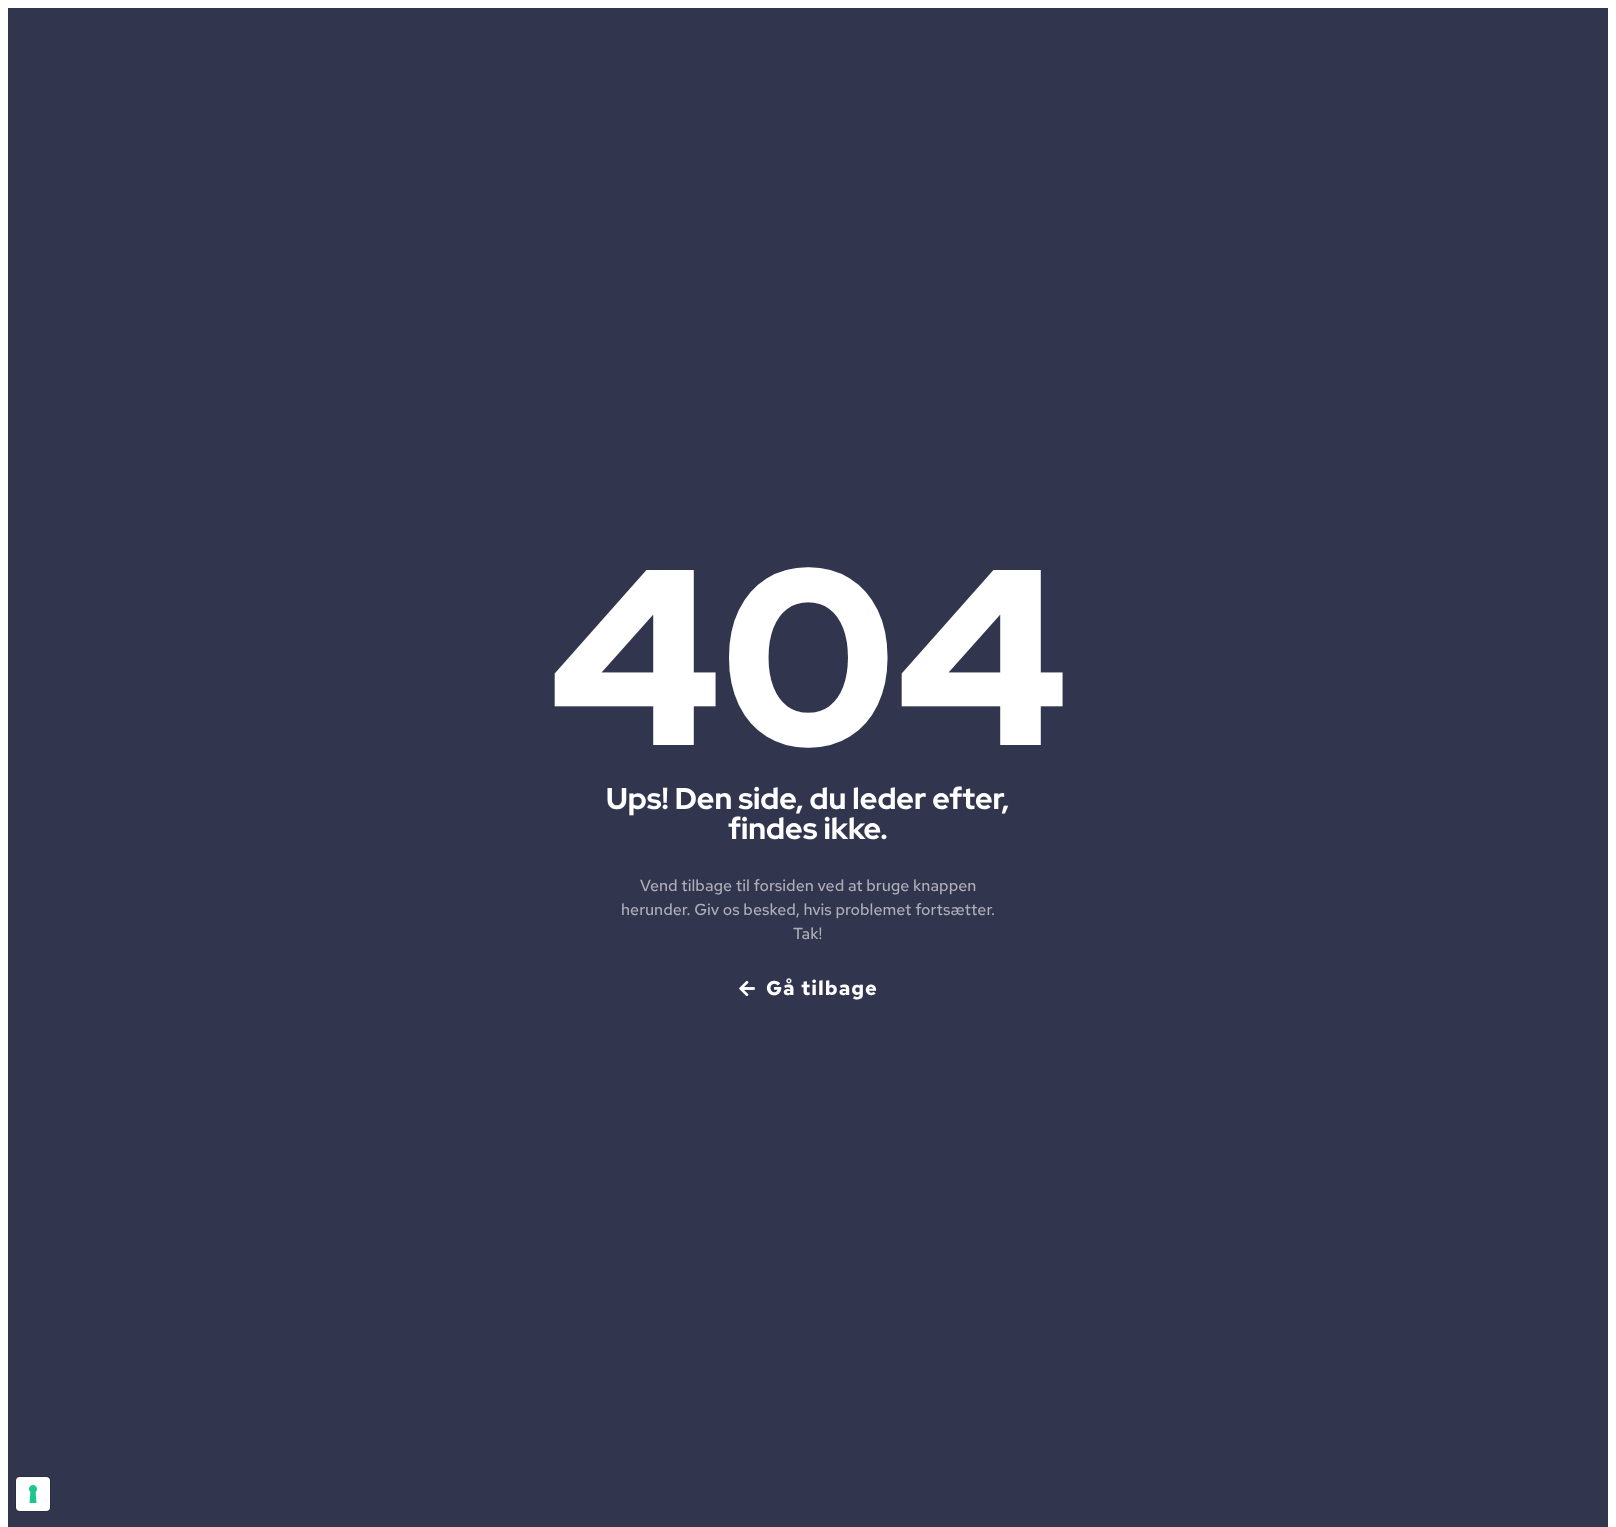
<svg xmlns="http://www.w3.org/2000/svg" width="1616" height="1527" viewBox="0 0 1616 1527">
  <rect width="100%" height="100%" fill="#fff"/>
  <path d="M8 8h1600v1519H8z" fill="#32354e"/>
  <image x="739" y="980" width="16" height="17" href="img/1.png"/>
  <rect x="15.5" y="1476.5" width="35" height="35" rx="4.5" fill="none" stroke="#2b2d42"/>
  <rect x="16" y="1477" width="34" height="34" rx="4" fill="#fff"/>
  <image x="29" y="1485" width="8" height="18" href="img/2.png"/>
  <text x="548" y="745" font-family="Red Hat Display" font-size="250" font-weight="900" fill="#fff">404</text>
  <g font-family="Red Hat Display" font-size="30" font-weight="800" fill="#fff">
    <text x="606" y="809">Ups! Den side, du leder efter,</text>
    <text x="728" y="839">findes ikke.</text>
  </g>
  <g font-family="Red Hat Text" font-size="16" font-weight="500" fill="#adaeb8">
    <text x="640" y="891">Vend tilbage til forsiden ved at bruge knappen</text>
    <text x="621" y="915">herunder. Giv os besked, hvis problemet fortsætter.</text>
    <text x="793" y="939">Tak!</text>
  </g>
  <text x="766" y="995" font-family="Red Hat Text" font-size="20" font-weight="bold" letter-spacing="1" fill="#fff">Gå tilbage</text>
</svg>
